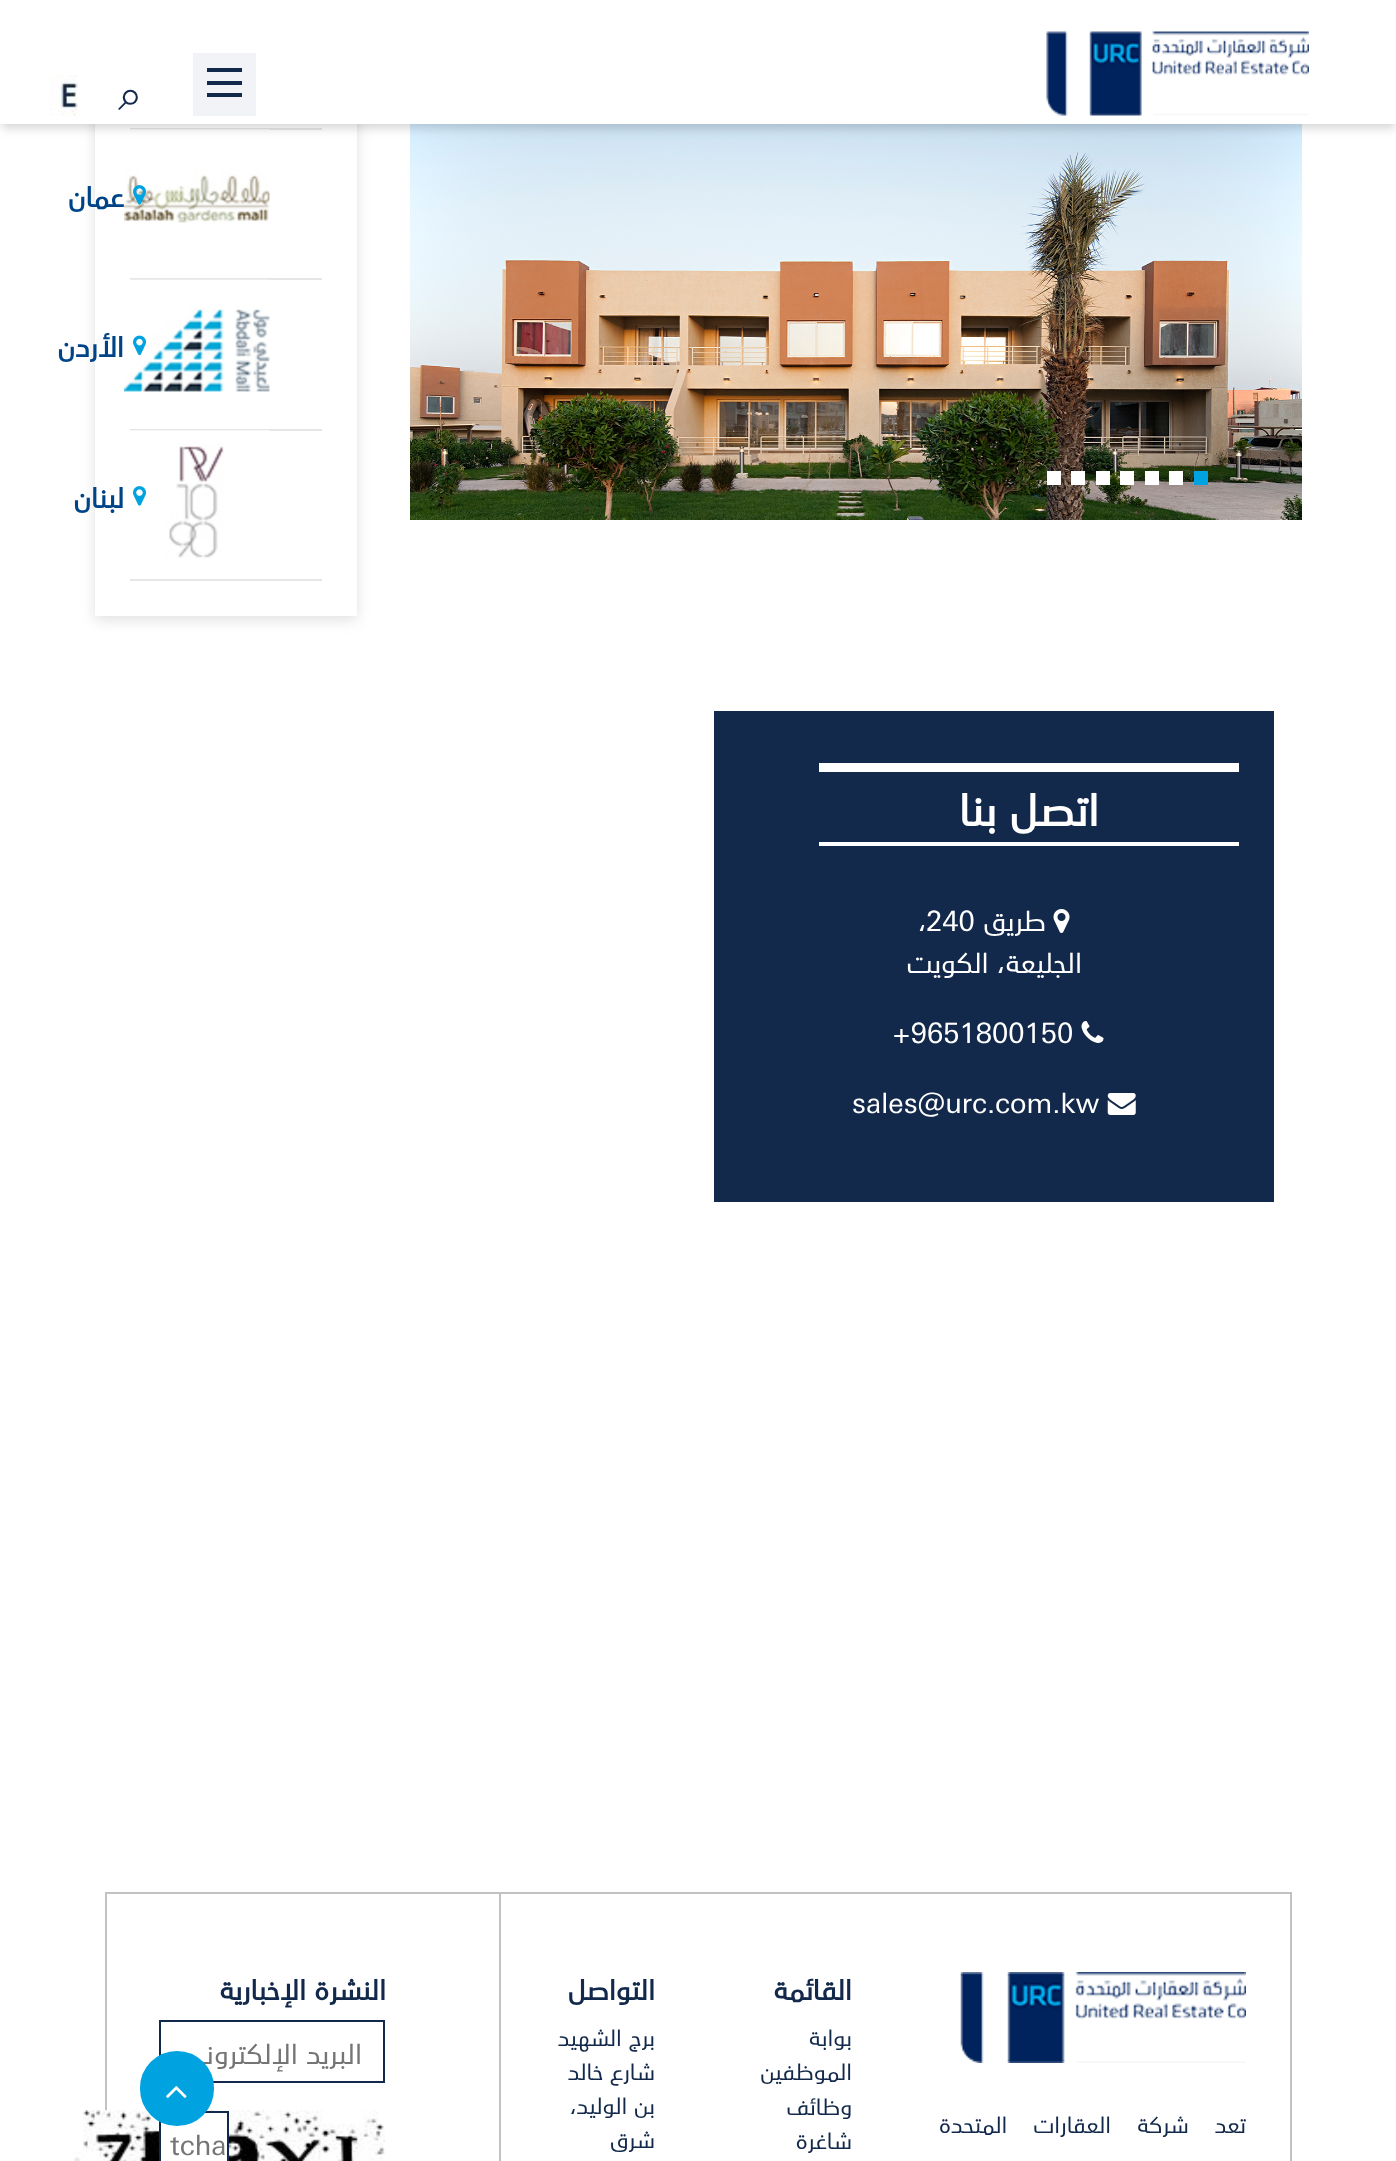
<svg xmlns="http://www.w3.org/2000/svg" width="1396" height="2161" viewBox="0 0 1396 2161">
  <defs>
    <clipPath id="clip1"><path d="M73 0H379V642H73ZM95-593H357V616H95Z" clip-rule="evenodd"/></clipPath>
  </defs>
  <rect width="100%" height="100%" fill="#fff"/>
  <image x="410" y="124" width="892" height="396" href="img/3.png"/>
  <g clip-path="url(#clip1)">
    <path d="M95 -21h262v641H95z" fill="#63636333" filter="blur(7px)"/>
  </g>
  <path d="M130 128h192v2H130z" fill="#e6e6e6"/>
  <image x="124" y="129" width="146" height="94" href="img/4.png"/>
  <path d="M2 5h1393v121H2z" fill="#0000000f" filter="blur(3.5px)"/>
  <path d="M2 9h1393v121H2z" fill="#0000001a" filter="blur(5px)"/>
  <path d="M0 0h1396v124H0z" fill="#fff"/>
  <image x="1046" y="31" width="263" height="85" href="img/1.png"/>
  <path d="M193 53h63v63H193z" fill="#f2f3f6"/>
  <path d="M207 68h35v4H207z" fill="#13294b"/>
  <path d="M207 81h35v4H207z" fill="#13294b"/>
  <path d="M207 93h35v4H207z" fill="#13294b"/>
  <image x="49" y="75" width="29" height="41" href="img/2.png"/>
  <path d="M1194 471h14v14H1194z" fill="#00a3e0"/>
  <path d="M1169 471h14v14H1169z" fill="#fff"/>
  <path d="M1145 471h14v14H1145z" fill="#fff"/>
  <path d="M1120 471h14v14H1120z" fill="#fff"/>
  <path d="M1096 471h14v14H1096z" fill="#fff"/>
  <path d="M1071 471h14v14H1071z" fill="#fff"/>
  <path d="M1047 471h14v14H1047z" fill="#fff"/>
  <image x="133" y="185" width="13" height="20" href="img/5.png"/>
  <path d="M130 278h192v2H130z" fill="#e6e6e6"/>
  <image x="124" y="279" width="146" height="113" href="img/6.png"/>
  <image x="133" y="335" width="13" height="21" href="img/7.png"/>
  <path d="M130 429h192v2H130z" fill="#e6e6e6"/>
  <image x="130" y="430" width="140" height="128" href="img/8.png"/>
  <image x="133" y="486" width="13" height="20" href="img/9.png"/>
  <path d="M130 579h192v2H130z" fill="#e6e6e6"/>
  <path d="M714 711h560v491H714z" fill="#13294b"/>
  <path d="M819 763h420v9H819z" fill="#fff"/>
  <path d="M819 842h420v4H819z" fill="#fff"/>
  <image x="1053" y="909" width="17" height="24" href="img/10.png"/>
  <image x="1081" y="1021" width="23" height="22" href="img/11.png"/>
  <image x="1107" y="1093" width="29" height="22" href="img/12.png"/>
  <path d="M106 1893h1185v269H106z" fill="none" stroke="#c2c2c2" stroke-width="2"/>
  <image x="960" y="1972" width="286" height="91" href="img/13.png"/>
  <path d="M499 1894h2v267H499z" fill="#c2c2c2"/>
  <path d="M160 2021h224v61H160z" fill="none" stroke="#13294b" stroke-width="2"/>
  <image x="73" y="2110" width="312" height="51" href="img/14.png"/>
  <path d="M160 2112h68v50H160z" fill="#fff" stroke="#13294b" stroke-width="2"/>
  <text x="118" y="110" font-family="FreeSerif" font-size="44" fill="#13294b">⌕</text>
  <g font-family="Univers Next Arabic" font-size="28" font-weight="bold" direction="rtl" fill="#048">
    <text x="124" y="207">عمان</text>
    <text x="124" y="357">الأردن</text>
    <text x="124" y="508">لبنان</text>
  </g>
  <text x="1099" y="826" font-family="Univers Next Arabic" font-size="44" font-weight="bold" direction="rtl" fill="#fff">اتصل بنا</text>
  <text x="1046" y="931" font-family="Univers Next Arabic" font-size="28" direction="rtl" fill="#fff">طريق</text>
  <text x="918" y="931" font-family="Univers Next Arabic" font-size="28" fill="#fff">،240</text>
  <text x="1082" y="973" font-family="Univers Next Arabic" font-size="28" direction="rtl" fill="#fff">الجليعة، الكويت</text>
  <g font-family="Univers Next Arabic" font-size="28" fill="#fff">
    <text x="892" y="1043">+9651800150</text>
    <text x="852" y="1113">sales@urc.com.kw</text>
  </g>
  <text x="1246" y="2133" word-spacing="19" font-family="Univers Next Arabic" font-size="22.75" direction="rtl" fill="#13294b">تعد شركة العقارات المتحدة</text>
  <text x="852" y="2000" font-family="Univers Next Arabic" font-size="28" font-weight="bold" direction="rtl" fill="#13294b">القائمة</text>
  <g font-family="Univers Next Arabic" font-size="22.75" direction="rtl" fill="#13294b">
    <text x="852" y="2046">بوابة</text>
    <text x="852" y="2080">الموظفين</text>
    <text x="852" y="2115">وظائف</text>
    <text x="852" y="2149">شاغرة</text>
  </g>
  <text x="655" y="2000" font-family="Univers Next Arabic" font-size="28" font-weight="bold" direction="rtl" fill="#13294b">التواصل</text>
  <g font-family="Univers Next Arabic" font-size="22.75" direction="rtl" fill="#13294b">
    <text x="655" y="2046">برج الشهيد</text>
    <text x="655" y="2080">شارع خالد</text>
    <text x="655" y="2114">بن الوليد،</text>
    <text x="655" y="2148">شرق</text>
  </g>
  <text x="386" y="2000" font-family="Univers Next Arabic" font-size="28" font-weight="bold" direction="rtl" fill="#13294b">النشرة الإخبارية</text>
  <text x="362" y="2064" font-family="Univers Next Arabic" font-size="28" direction="rtl" fill="#757575">البريد الإلكتروني</text>
  <text x="170" y="2155" font-family="Univers Next Arabic" font-size="28" fill="#757575">tcha</text>
  <rect x="141" y="2052" width="72" height="73" rx="36" fill="#00a3e0" stroke="#00a3e0" stroke-width="2"/>
  <image x="166" y="2086" width="21" height="12" href="img/15.png"/>
</svg>
